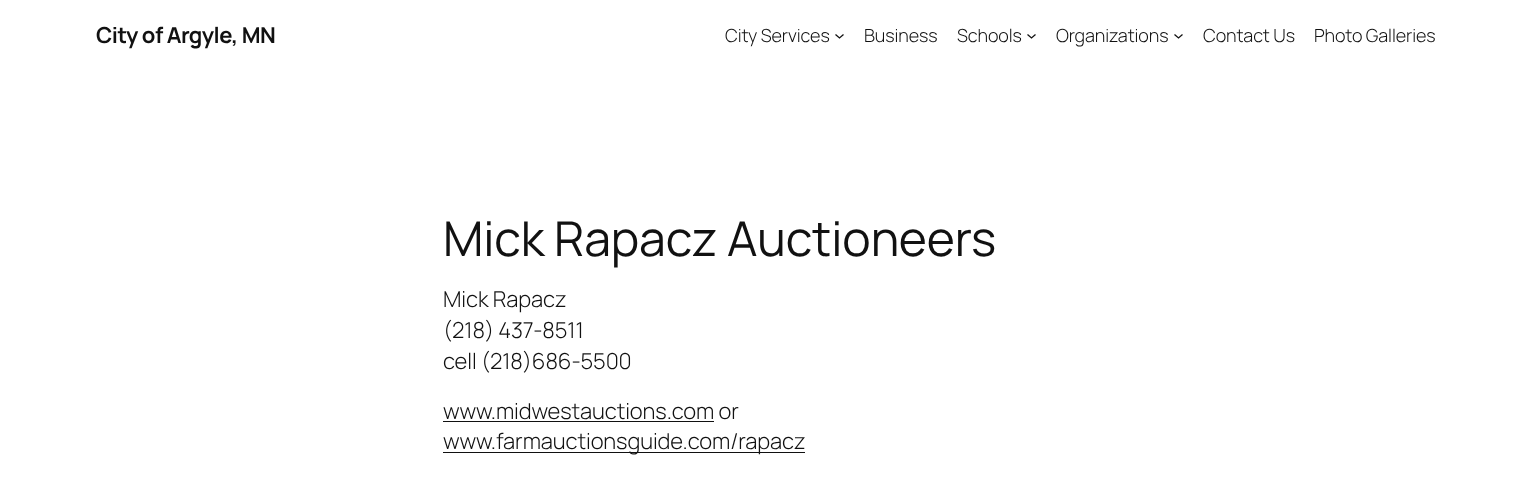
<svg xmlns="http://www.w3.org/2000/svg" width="1531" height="494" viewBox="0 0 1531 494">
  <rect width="100%" height="100%" fill="#fff"/>
  <path d="M835.5 34.5L839.5 38L843.5 34.5" fill="none" stroke="#111" stroke-width="1.3"/>
  <path d="M1027.5 34.5L1031.5 38L1035.5 34.5" fill="none" stroke="#111" stroke-width="1.3"/>
  <path d="M1174.5 34.5L1178.5 38L1182.5 34.5" fill="none" stroke="#111" stroke-width="1.3"/>
  <path d="M443 421h271v1H443z" fill="#111"/>
  <path d="M443 452h362v1H443z" fill="#111"/>
  <text x="96" y="43" font-family="Manrope" font-size="22" font-weight="bold" letter-spacing="-0.5" fill="#111">City of Argyle, MN</text>
  <g font-family="Manrope" font-size="18" font-weight="300" letter-spacing="-0.1" fill="#111">
    <text x="725" y="42">City Services</text>
    <text x="864" y="42">Business</text>
    <text x="957" y="42">Schools</text>
    <text x="1056" y="42">Organizations</text>
    <text x="1203" y="42">Contact Us</text>
    <text x="1314" y="42">Photo Galleries</text>
  </g>
  <text x="443" y="256" font-family="Manrope" font-size="48" letter-spacing="-0.1" fill="#111">Mick Rapacz Auctioneers</text>
  <g font-family="Manrope" font-size="22" font-weight="300" letter-spacing="-0.1" fill="#111">
    <text x="443" y="307">Mick Rapacz</text>
    <text x="443" y="338">(218) 437-8511</text>
    <text x="443" y="369">cell (218)686-5500</text>
    <text x="443" y="419">www.midwestauctions.com or</text>
    <text x="443" y="449">www.farmauctionsguide.com/rapacz</text>
  </g>
</svg>
